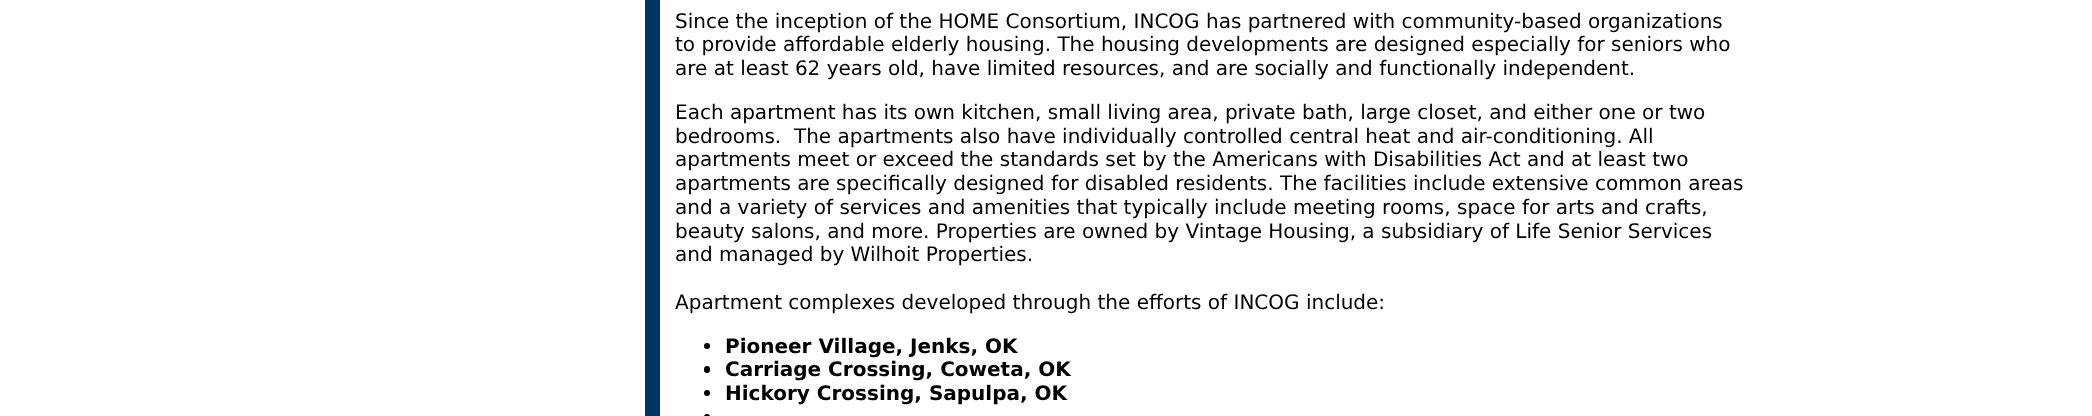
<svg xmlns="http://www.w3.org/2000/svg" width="2092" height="416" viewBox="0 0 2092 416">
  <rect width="100%" height="100%" fill="#fff"/>
  <path d="M645 0h15v416H645z" fill="#003466"/>
  <circle cx="707" cy="346" r="3" fill="#000"/>
  <rect x="704" y="366" width="6" height="7" rx="3" fill="#000"/>
  <circle cx="707" cy="393" r="3" fill="#000"/>
  <rect x="704" y="414" width="6" height="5" rx="3" fill="#000"/>
  <g font-family="DejaVu Sans" font-size="20" fill="#000">
    <text x="675" y="28">Since the inception of the HOME Consortium, INCOG has partnered with community-based organizations</text>
    <text x="675" y="51">to provide affordable elderly housing. The housing developments are designed especially for seniors who</text>
    <text x="675" y="75">are at least 62 years old, have limited resources, and are socially and functionally independent.</text>
    <text x="675" y="119">Each apartment has its own kitchen, small living area, private bath, large closet, and either one or two</text>
    <text x="675" y="143" xml:space="preserve">bedrooms.  The apartments also have individually controlled central heat and air-conditioning. All</text>
    <text x="675" y="166">apartments meet or exceed the standards set by the Americans with Disabilities Act and at least two</text>
    <text x="675" y="190">apartments are specifically designed for disabled residents. The facilities include extensive common areas</text>
    <text x="675" y="214">and a variety of services and amenities that typically include meeting rooms, space for arts and crafts,</text>
    <text x="675" y="238">beauty salons, and more. Properties are owned by Vintage Housing, a subsidiary of Life Senior Services</text>
    <text x="675" y="261">and managed by Wilhoit Properties.</text>
    <text x="675" y="309">Apartment complexes developed through the efforts of INCOG include:</text>
  </g>
  <g font-family="DejaVu Sans" font-size="20" font-weight="bold" fill="#000">
    <text x="725" y="353">Pioneer Village, Jenks, OK</text>
    <text x="725" y="376">Carriage Crossing, Coweta, OK</text>
    <text x="725" y="400">Hickory Crossing, Sapulpa, OK</text>
  </g>
</svg>
